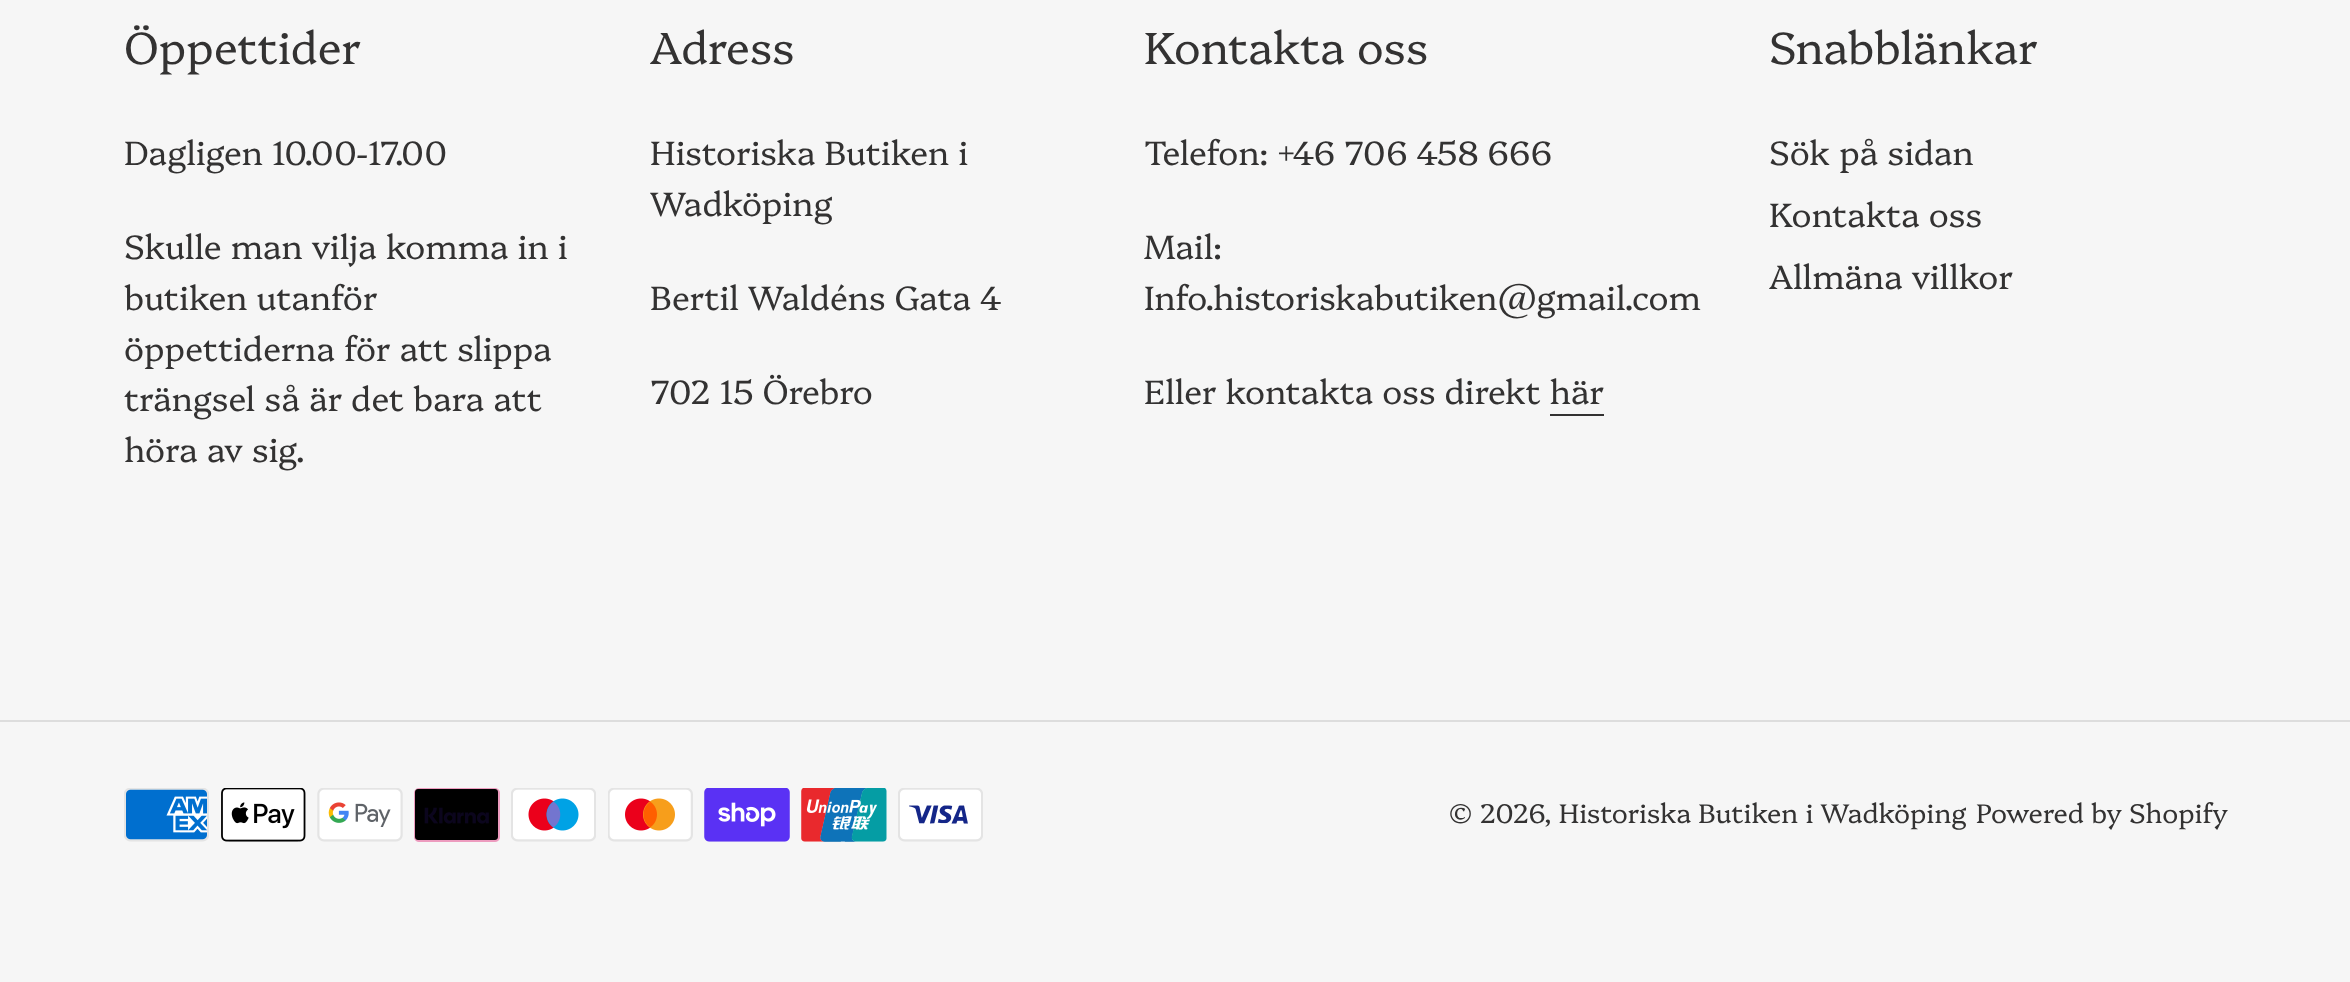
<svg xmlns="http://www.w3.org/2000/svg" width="2350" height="982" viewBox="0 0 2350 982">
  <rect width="100%" height="100%" fill="#f6f6f6"/>
  <path d="M1550 414h54v2H1550z" fill="#333232"/>
  <path d="M0 720h2350v2H0z" fill="#ddd"/>
  <image x="124" y="788" width="85" height="54" href="img/1.png"/>
  <image x="221" y="788" width="85" height="54" href="img/2.png"/>
  <image x="317" y="788" width="86" height="54" href="img/3.png"/>
  <image x="414" y="788" width="86" height="54" href="img/4.png"/>
  <image x="511" y="788" width="85" height="54" href="img/5.png"/>
  <image x="608" y="788" width="85" height="54" href="img/6.png"/>
  <image x="704" y="788" width="86" height="54" href="img/7.png"/>
  <image x="801" y="788" width="86" height="54" href="img/8.png"/>
  <image x="898" y="788" width="85" height="54" href="img/9.png"/>
  <text x="124" y="64" font-family="Platypi" font-size="45" font-weight="300" fill="#333232">Öppettider</text>
  <g font-family="Platypi" font-size="33.75" font-weight="300" fill="#333232">
    <text x="124" y="165">Dagligen 10.00-17.00</text>
    <text x="124" y="259">Skulle man vilja komma in i</text>
    <text x="124" y="310">butiken utanför</text>
    <text x="124" y="361">öppettiderna för att slippa</text>
    <text x="124" y="411">trängsel så är det bara att</text>
    <text x="124" y="462">höra av sig.</text>
  </g>
  <text x="650" y="64" font-family="Platypi" font-size="45" font-weight="300" fill="#333232">Adress</text>
  <g font-family="Platypi" font-size="33.75" font-weight="300" fill="#333232">
    <text x="650" y="165">Historiska Butiken i</text>
    <text x="650" y="216">Wadköping</text>
    <text x="650" y="310">Bertil Waldéns Gata 4</text>
    <text x="650" y="404">702 15 Örebro</text>
  </g>
  <text x="1144" y="64" font-family="Platypi" font-size="45" font-weight="300" fill="#333232">Kontakta oss</text>
  <g font-family="Platypi" font-size="33.75" font-weight="300" fill="#333232">
    <text x="1144" y="165">Telefon: +46 706 458 666</text>
    <text x="1144" y="259">Mail:</text>
    <text x="1144" y="310">Info.historiskabutiken@gmail.com</text>
    <text x="1144" y="404">Eller kontakta oss direkt här</text>
  </g>
  <text x="1769" y="64" font-family="Platypi" font-size="45" font-weight="300" fill="#333232">Snabblänkar</text>
  <g font-family="Platypi" font-size="33.75" font-weight="300" fill="#333232">
    <text x="1769" y="165">Sök på sidan</text>
    <text x="1769" y="227">Kontakta oss</text>
    <text x="1769" y="289">Allmäna villkor</text>
  </g>
  <g font-family="Platypi" font-size="27" font-weight="300" fill="#333232">
    <text x="1449" y="823">© 2026, Historiska Butiken i Wadköping</text>
    <text x="1976" y="823">Powered by Shopify</text>
  </g>
</svg>
